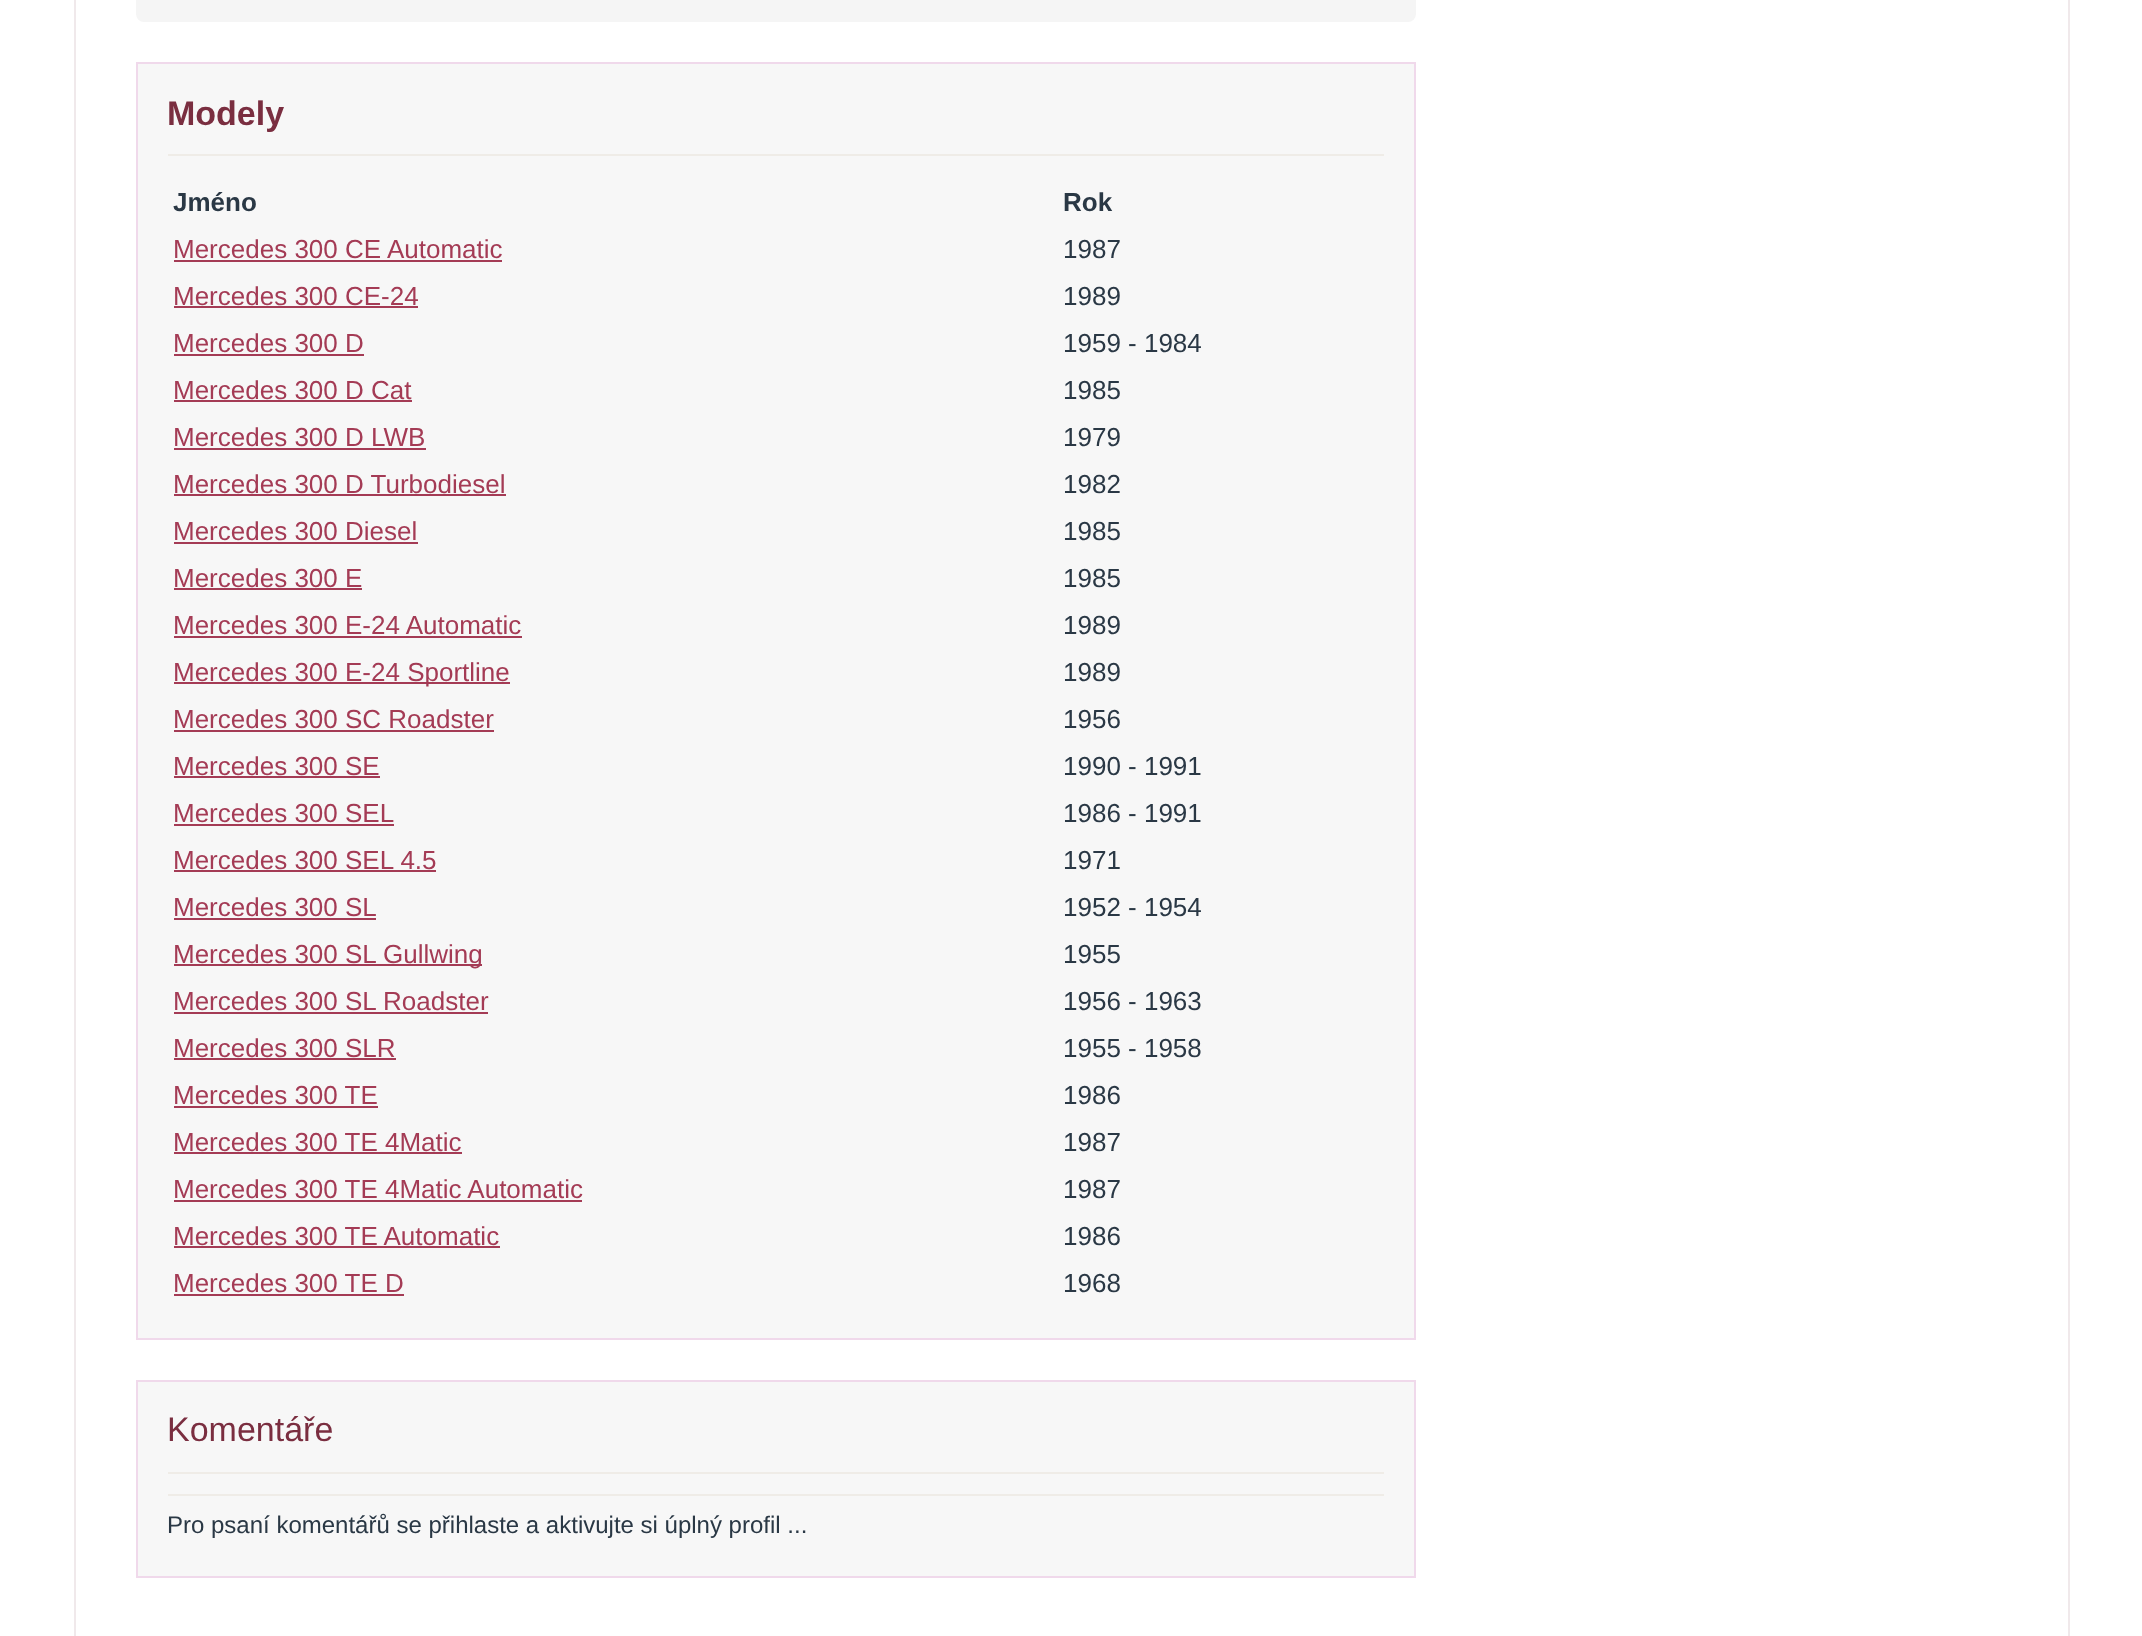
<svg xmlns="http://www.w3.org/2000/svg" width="2142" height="1636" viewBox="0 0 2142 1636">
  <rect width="100%" height="100%" fill="#fff"/>
  <path d="M2068 0h2v1636H2068z" fill="#f0e9eb"/>
  <path d="M74 0h2v1636H74z" fill="#f0e9eb"/>
  <rect x="136" y="-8" width="1280" height="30" rx="8" fill="#f5f5f5"/>
  <path d="M137 63h1278v1276H137z" fill="#f7f7f7" stroke="#f0d9eb" stroke-width="2"/>
  <path d="M168 154h1216v2H168z" fill="#efece7"/>
  <path d="M174 260h328v2H174z" fill="#a43b55"/>
  <path d="M174 306h244v2H174z" fill="#a43b55"/>
  <path d="M174 354h190v2H174z" fill="#a43b55"/>
  <path d="M174 400h238v2H174z" fill="#a43b55"/>
  <path d="M174 448h252v2H174z" fill="#a43b55"/>
  <path d="M174 494h332v2H174z" fill="#a43b55"/>
  <path d="M174 542h244v2H174z" fill="#a43b55"/>
  <path d="M174 588h188v2H174z" fill="#a43b55"/>
  <path d="M174 636h348v2H174z" fill="#a43b55"/>
  <path d="M174 682h336v2H174z" fill="#a43b55"/>
  <path d="M174 730h320v2H174z" fill="#a43b55"/>
  <path d="M174 776h206v2H174z" fill="#a43b55"/>
  <path d="M174 824h220v2H174z" fill="#a43b55"/>
  <path d="M174 870h262v2H174z" fill="#a43b55"/>
  <path d="M174 918h202v2H174z" fill="#a43b55"/>
  <path d="M174 964h308v2H174z" fill="#a43b55"/>
  <path d="M174 1012h314v2H174z" fill="#a43b55"/>
  <path d="M174 1058h222v2H174z" fill="#a43b55"/>
  <path d="M174 1106h204v2H174z" fill="#a43b55"/>
  <path d="M174 1152h288v2H174z" fill="#a43b55"/>
  <path d="M174 1200h408v2H174z" fill="#a43b55"/>
  <path d="M174 1246h326v2H174z" fill="#a43b55"/>
  <path d="M174 1294h230v2H174z" fill="#a43b55"/>
  <path d="M137 1381h1278v196H137z" fill="#f7f7f7" stroke="#f0d9eb" stroke-width="2"/>
  <path d="M168 1472h1216v2H168z" fill="#efece7"/>
  <path d="M168 1494h1216v2H168z" fill="#efece7"/>
  <text x="167" y="125" font-family="Liberation Sans" font-size="34" font-weight="bold" fill="#7a2e40">Modely</text>
  <g font-family="Liberation Sans" font-size="26" font-weight="bold" fill="#2a3845">
    <text x="173" y="211">Jméno</text>
    <text x="1063" y="211">Rok</text>
  </g>
  <text x="173" y="258" font-family="Liberation Sans" font-size="26" fill="#a43b55">Mercedes 300 CE Automatic</text>
  <text x="1063" y="258" font-family="Liberation Sans" font-size="26" fill="#2a3845">1987</text>
  <text x="173" y="305" font-family="Liberation Sans" font-size="26" fill="#a43b55">Mercedes 300 CE-24</text>
  <text x="1063" y="305" font-family="Liberation Sans" font-size="26" fill="#2a3845">1989</text>
  <text x="173" y="352" font-family="Liberation Sans" font-size="26" fill="#a43b55">Mercedes 300 D</text>
  <text x="1063" y="352" font-family="Liberation Sans" font-size="26" fill="#2a3845">1959 - 1984</text>
  <text x="173" y="399" font-family="Liberation Sans" font-size="26" fill="#a43b55">Mercedes 300 D Cat</text>
  <text x="1063" y="399" font-family="Liberation Sans" font-size="26" fill="#2a3845">1985</text>
  <text x="173" y="446" font-family="Liberation Sans" font-size="26" fill="#a43b55">Mercedes 300 D LWB</text>
  <text x="1063" y="446" font-family="Liberation Sans" font-size="26" fill="#2a3845">1979</text>
  <text x="173" y="493" font-family="Liberation Sans" font-size="26" fill="#a43b55">Mercedes 300 D Turbodiesel</text>
  <text x="1063" y="493" font-family="Liberation Sans" font-size="26" fill="#2a3845">1982</text>
  <text x="173" y="540" font-family="Liberation Sans" font-size="26" fill="#a43b55">Mercedes 300 Diesel</text>
  <text x="1063" y="540" font-family="Liberation Sans" font-size="26" fill="#2a3845">1985</text>
  <text x="173" y="587" font-family="Liberation Sans" font-size="26" fill="#a43b55">Mercedes 300 E</text>
  <text x="1063" y="587" font-family="Liberation Sans" font-size="26" fill="#2a3845">1985</text>
  <text x="173" y="634" font-family="Liberation Sans" font-size="26" fill="#a43b55">Mercedes 300 E-24 Automatic</text>
  <text x="1063" y="634" font-family="Liberation Sans" font-size="26" fill="#2a3845">1989</text>
  <text x="173" y="681" font-family="Liberation Sans" font-size="26" fill="#a43b55">Mercedes 300 E-24 Sportline</text>
  <text x="1063" y="681" font-family="Liberation Sans" font-size="26" fill="#2a3845">1989</text>
  <text x="173" y="728" font-family="Liberation Sans" font-size="26" fill="#a43b55">Mercedes 300 SC Roadster</text>
  <text x="1063" y="728" font-family="Liberation Sans" font-size="26" fill="#2a3845">1956</text>
  <text x="173" y="775" font-family="Liberation Sans" font-size="26" fill="#a43b55">Mercedes 300 SE</text>
  <text x="1063" y="775" font-family="Liberation Sans" font-size="26" fill="#2a3845">1990 - 1991</text>
  <text x="173" y="822" font-family="Liberation Sans" font-size="26" fill="#a43b55">Mercedes 300 SEL</text>
  <text x="1063" y="822" font-family="Liberation Sans" font-size="26" fill="#2a3845">1986 - 1991</text>
  <text x="173" y="869" font-family="Liberation Sans" font-size="26" fill="#a43b55">Mercedes 300 SEL 4.5</text>
  <text x="1063" y="869" font-family="Liberation Sans" font-size="26" fill="#2a3845">1971</text>
  <text x="173" y="916" font-family="Liberation Sans" font-size="26" fill="#a43b55">Mercedes 300 SL</text>
  <text x="1063" y="916" font-family="Liberation Sans" font-size="26" fill="#2a3845">1952 - 1954</text>
  <text x="173" y="963" font-family="Liberation Sans" font-size="26" fill="#a43b55">Mercedes 300 SL Gullwing</text>
  <text x="1063" y="963" font-family="Liberation Sans" font-size="26" fill="#2a3845">1955</text>
  <text x="173" y="1010" font-family="Liberation Sans" font-size="26" fill="#a43b55">Mercedes 300 SL Roadster</text>
  <text x="1063" y="1010" font-family="Liberation Sans" font-size="26" fill="#2a3845">1956 - 1963</text>
  <text x="173" y="1057" font-family="Liberation Sans" font-size="26" fill="#a43b55">Mercedes 300 SLR</text>
  <text x="1063" y="1057" font-family="Liberation Sans" font-size="26" fill="#2a3845">1955 - 1958</text>
  <text x="173" y="1104" font-family="Liberation Sans" font-size="26" fill="#a43b55">Mercedes 300 TE</text>
  <text x="1063" y="1104" font-family="Liberation Sans" font-size="26" fill="#2a3845">1986</text>
  <text x="173" y="1151" font-family="Liberation Sans" font-size="26" fill="#a43b55">Mercedes 300 TE 4Matic</text>
  <text x="1063" y="1151" font-family="Liberation Sans" font-size="26" fill="#2a3845">1987</text>
  <text x="173" y="1198" font-family="Liberation Sans" font-size="26" fill="#a43b55">Mercedes 300 TE 4Matic Automatic</text>
  <text x="1063" y="1198" font-family="Liberation Sans" font-size="26" fill="#2a3845">1987</text>
  <text x="173" y="1245" font-family="Liberation Sans" font-size="26" fill="#a43b55">Mercedes 300 TE Automatic</text>
  <text x="1063" y="1245" font-family="Liberation Sans" font-size="26" fill="#2a3845">1986</text>
  <text x="173" y="1292" font-family="Liberation Sans" font-size="26" fill="#a43b55">Mercedes 300 TE D</text>
  <text x="1063" y="1292" font-family="Liberation Sans" font-size="26" fill="#2a3845">1968</text>
  <text x="167" y="1441" font-family="Liberation Sans" font-size="34" fill="#7a2e40">Komentáře</text>
  <text x="167" y="1533" font-family="Liberation Sans" font-size="24" fill="#2a3845">Pro psaní komentářů se přihlaste a aktivujte si úplný profil ...</text>
</svg>
